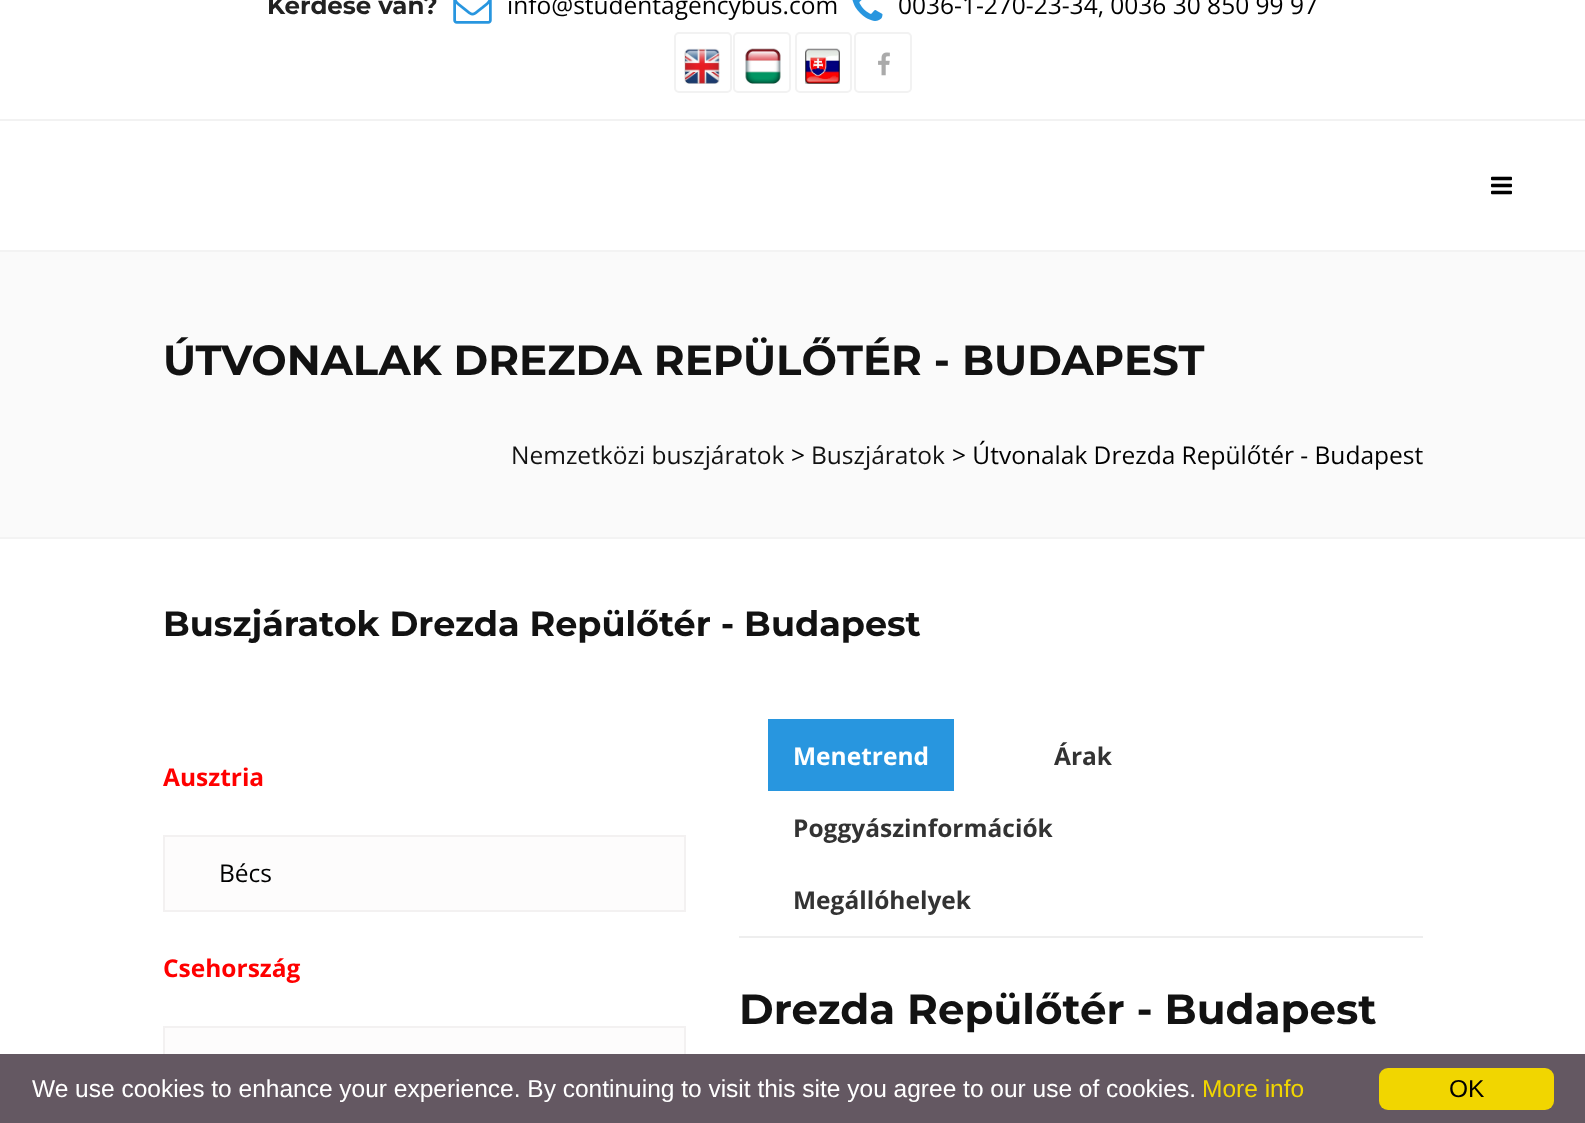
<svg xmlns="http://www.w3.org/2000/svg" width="1585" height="1123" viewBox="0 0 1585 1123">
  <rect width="100%" height="100%" fill="#fafafa"/>
  <path d="M0 0h1585v119H0z" fill="#fff"/>
  <path d="M0 119h1585v2H0z" fill="#f2f2f2"/>
  <image x="453" y="0" width="39" height="24" href="img/1.png"/>
  <image x="852" y="0" width="31" height="21" href="img/2.png"/>
  <rect x="675" y="33" width="56" height="59" rx="4" fill="none" stroke="#f2f2f2" stroke-width="2"/>
  <image x="684" y="48" width="36" height="36" href="img/3.png"/>
  <rect x="734" y="33" width="56" height="59" rx="4" fill="none" stroke="#f2f2f2" stroke-width="2"/>
  <image x="745" y="48" width="36" height="36" href="img/4.png"/>
  <rect x="796" y="33" width="55" height="59" rx="4" fill="none" stroke="#f2f2f2" stroke-width="2"/>
  <image x="805" y="48" width="35" height="36" href="img/5.png"/>
  <rect x="855" y="33" width="56" height="59" rx="4" fill="none" stroke="#f2f2f2" stroke-width="2"/>
  <image x="878" y="52" width="12" height="24" href="img/6.png"/>
  <path d="M0 121h1585v129H0z" fill="#fff"/>
  <image x="1491" y="176" width="21" height="19" href="img/7.png"/>
  <path d="M0 250h1585v2H0z" fill="#f3f3f3"/>
  <path d="M0 537h1585v2H0z" fill="#f3f3f3"/>
  <path d="M0 539h1585v515H0z" fill="#fff"/>
  <path d="M164 836h521v75H164z" fill="#fdfcfc" stroke="#f3f1f1" stroke-width="2"/>
  <path d="M165 1028h519v26H165z" fill="#fdfcfc"/>
  <path d="M164 1027h521v75H164z" fill="none" stroke="#f3f1f1" stroke-width="2"/>
  <path d="M739 936h684v2H739z" fill="#eee"/>
  <path d="M768 719h186v72H768z" fill="#2896df"/>
  <path d="M0 1054h1585v69H0z" fill="#645862"/>
  <rect x="1379" y="1068" width="175" height="42" rx="9" fill="#f1d600"/>
  <text x="267" y="14" font-family="Montserrat" font-size="24.5" font-weight="bold" fill="#222">Kérdése van?</text>
  <g font-family="Open Sans" font-size="24.5" fill="#000">
    <text x="507" y="14">info@studentagencybus.com</text>
    <text x="898" y="14">0036-1-270-23-34, 0036 30 850 99 97</text>
  </g>
  <text x="163" y="375" font-family="Montserrat" font-size="42" font-weight="bold" fill="#121212">ÚTVONALAK DREZDA REPÜLŐTÉR - BUDAPEST</text>
  <text x="511" y="464" font-family="Open Sans" font-size="24.5" fill="#121212">Nemzetközi buszjáratok</text>
  <text x="791" y="464" font-family="Open Sans" font-size="24.5" fill="#000">&gt;</text>
  <text x="811" y="464" font-family="Open Sans" font-size="24.5" fill="#121212">Buszjáratok</text>
  <text x="952" y="464" font-family="Open Sans" font-size="24.5" fill="#000">&gt; Útvonalak Drezda Repülőtér - Budapest</text>
  <text x="163" y="636" font-family="Montserrat" font-size="35" font-weight="bold" fill="#121212">Buszjáratok Drezda Repülőtér - Budapest</text>
  <text x="163" y="786" font-family="Open Sans" font-size="24.5" font-weight="bold" fill="#f00">Ausztria</text>
  <text x="219" y="882" font-family="Open Sans" font-size="24.5" fill="#000">Bécs</text>
  <text x="163" y="977" font-family="Open Sans" font-size="24.5" font-weight="bold" fill="#f00">Csehország</text>
  <text x="793" y="765" font-family="Open Sans" font-size="24.5" font-weight="bold" fill="#fff">Menetrend</text>
  <g font-family="Open Sans" font-size="24.5" font-weight="bold" fill="#333">
    <text x="1054" y="765">Árak</text>
    <text x="793" y="837">Poggyászinformációk</text>
    <text x="793" y="909">Megállóhelyek</text>
  </g>
  <text x="739" y="1024" font-family="Montserrat" font-size="42" font-weight="bold" fill="#121212">Drezda Repülőtér - Budapest</text>
  <text x="32" y="1097" font-family="Liberation Sans" font-size="24.5" fill="#fff">We use cookies to enhance your experience. By continuing to visit this site you agree to our use of cookies.</text>
  <text x="1202" y="1097" font-family="Liberation Sans" font-size="24.5" fill="#f1d600">More info</text>
  <text x="1449" y="1097" font-family="Liberation Sans" font-size="24.5" fill="#000">OK</text>
</svg>
